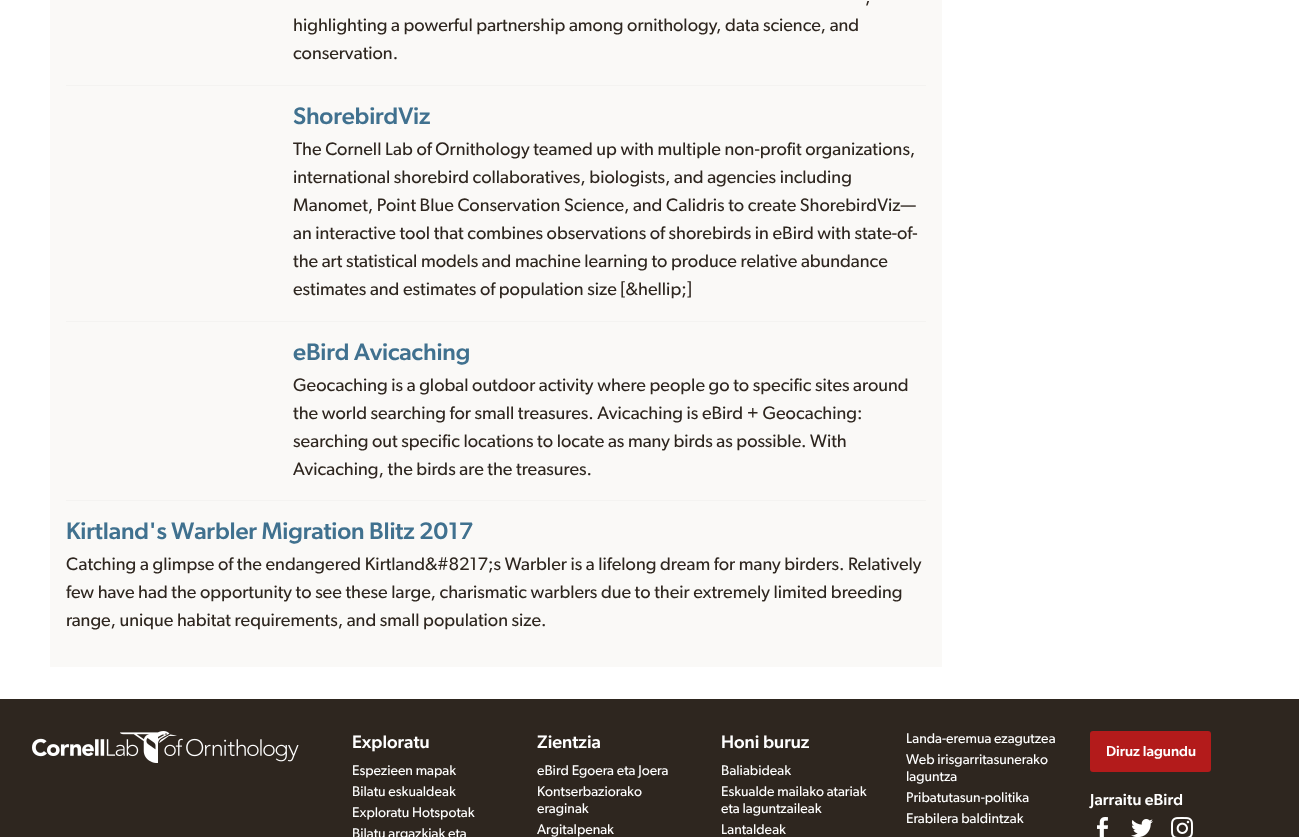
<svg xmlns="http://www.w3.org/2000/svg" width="1299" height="837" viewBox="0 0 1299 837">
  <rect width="100%" height="100%" fill="#fff"/>
  <path d="M50 0h892v667H50z" fill="#faf9f7"/>
  <path d="M66 85h860v1H66z" fill="#f4f3f1"/>
  <path d="M66 321h860v1H66z" fill="#f4f3f1"/>
  <path d="M66 500h860v1H66z" fill="#f4f3f1"/>
  <path d="M0 699h1299v138H0z" fill="#2e261f"/>
  <image x="32" y="731" width="267" height="32" href="img/1.png"/>
  <rect x="1090" y="731" width="121" height="41" rx="3" fill="#b31b1b"/>
  <image x="1097" y="817" width="11" height="20" href="img/2.png"/>
  <image x="1131" y="819" width="22" height="18" href="img/3.png"/>
  <image x="1171" y="817" width="22" height="20" href="img/4.png"/>
  <g font-family="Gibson" font-size="18.1" fill="#2e261f">
    <text x="865" y="3">,</text>
    <text x="293" y="31">highlighting a powerful partnership among ornithology, data science, and</text>
    <text x="293" y="59">conservation.</text>
  </g>
  <text x="293" y="124" font-family="Gibson" font-size="24" font-weight="500" letter-spacing="-0.15" fill="#40718f">ShorebirdViz</text>
  <g font-family="Gibson" font-size="18.1" fill="#2e261f">
    <text x="293" y="155">The Cornell Lab of Ornithology teamed up with multiple non-profit organizations,</text>
    <text x="293" y="183">international shorebird collaboratives, biologists, and agencies including</text>
    <text x="293" y="211">Manomet, Point Blue Conservation Science, and Calidris to create ShorebirdViz—</text>
    <text x="293" y="239">an interactive tool that combines observations of shorebirds in eBird with state-of-</text>
    <text x="293" y="267">the art statistical models and machine learning to produce relative abundance</text>
    <text x="293" y="295">estimates and estimates of population size [&amp;hellip;]</text>
  </g>
  <text x="293" y="360" font-family="Gibson" font-size="24" font-weight="500" letter-spacing="-0.15" fill="#40718f">eBird Avicaching</text>
  <g font-family="Gibson" font-size="18.1" fill="#2e261f">
    <text x="293" y="391">Geocaching is a global outdoor activity where people go to specific sites around</text>
    <text x="293" y="419">the world searching for small treasures. Avicaching is eBird + Geocaching:</text>
    <text x="293" y="447">searching out specific locations to locate as many birds as possible. With</text>
    <text x="293" y="475">Avicaching, the birds are the treasures.</text>
  </g>
  <text x="66" y="539" font-family="Gibson" font-size="24" font-weight="500" letter-spacing="-0.15" fill="#40718f">Kirtland's Warbler Migration Blitz 2017</text>
  <g font-family="Gibson" font-size="18.1" fill="#2e261f">
    <text x="66" y="570">Catching a glimpse of the endangered Kirtland&amp;#8217;s Warbler is a lifelong dream for many birders. Relatively</text>
    <text x="66" y="598">few have had the opportunity to see these large, charismatic warblers due to their extremely limited breeding</text>
    <text x="66" y="626">range, unique habitat requirements, and small population size.</text>
  </g>
  <text x="352" y="748" font-family="Gibson" font-size="18.1" font-weight="500" fill="#fff">Exploratu</text>
  <g font-family="Gibson" font-size="14" fill="#fff">
    <text x="352" y="775">Espezieen mapak</text>
    <text x="352" y="796">Bilatu eskualdeak</text>
    <text x="352" y="817">Exploratu Hotspotak</text>
    <text x="352" y="838">Bilatu argazkiak eta</text>
  </g>
  <text x="537" y="748" font-family="Gibson" font-size="18.1" font-weight="500" fill="#fff">Zientzia</text>
  <g font-family="Gibson" font-size="14" fill="#fff">
    <text x="537" y="775">eBird Egoera eta Joera</text>
    <text x="537" y="796">Kontserbaziorako</text>
    <text x="537" y="813">eraginak</text>
    <text x="537" y="834">Argitalpenak</text>
  </g>
  <text x="721" y="748" font-family="Gibson" font-size="18.1" font-weight="500" fill="#fff">Honi buruz</text>
  <g font-family="Gibson" font-size="14" fill="#fff">
    <text x="721" y="775">Baliabideak</text>
    <text x="721" y="796">Eskualde mailako atariak</text>
    <text x="721" y="813">eta laguntzaileak</text>
    <text x="721" y="834">Lantaldeak</text>
    <text x="906" y="743">Landa-eremua ezagutzea</text>
    <text x="906" y="764">Web irisgarritasunerako</text>
    <text x="906" y="781">laguntza</text>
    <text x="906" y="802">Pribatutasun-politika</text>
    <text x="906" y="823">Erabilera baldintzak</text>
  </g>
  <text x="1106" y="756" font-family="Gibson" font-size="14.5" font-weight="500" fill="#fff">Diruz lagundu</text>
  <text x="1090" y="805" font-family="Gibson" font-size="16" font-weight="500" letter-spacing="0.1" fill="#fff">Jarraitu eBird</text>
</svg>
